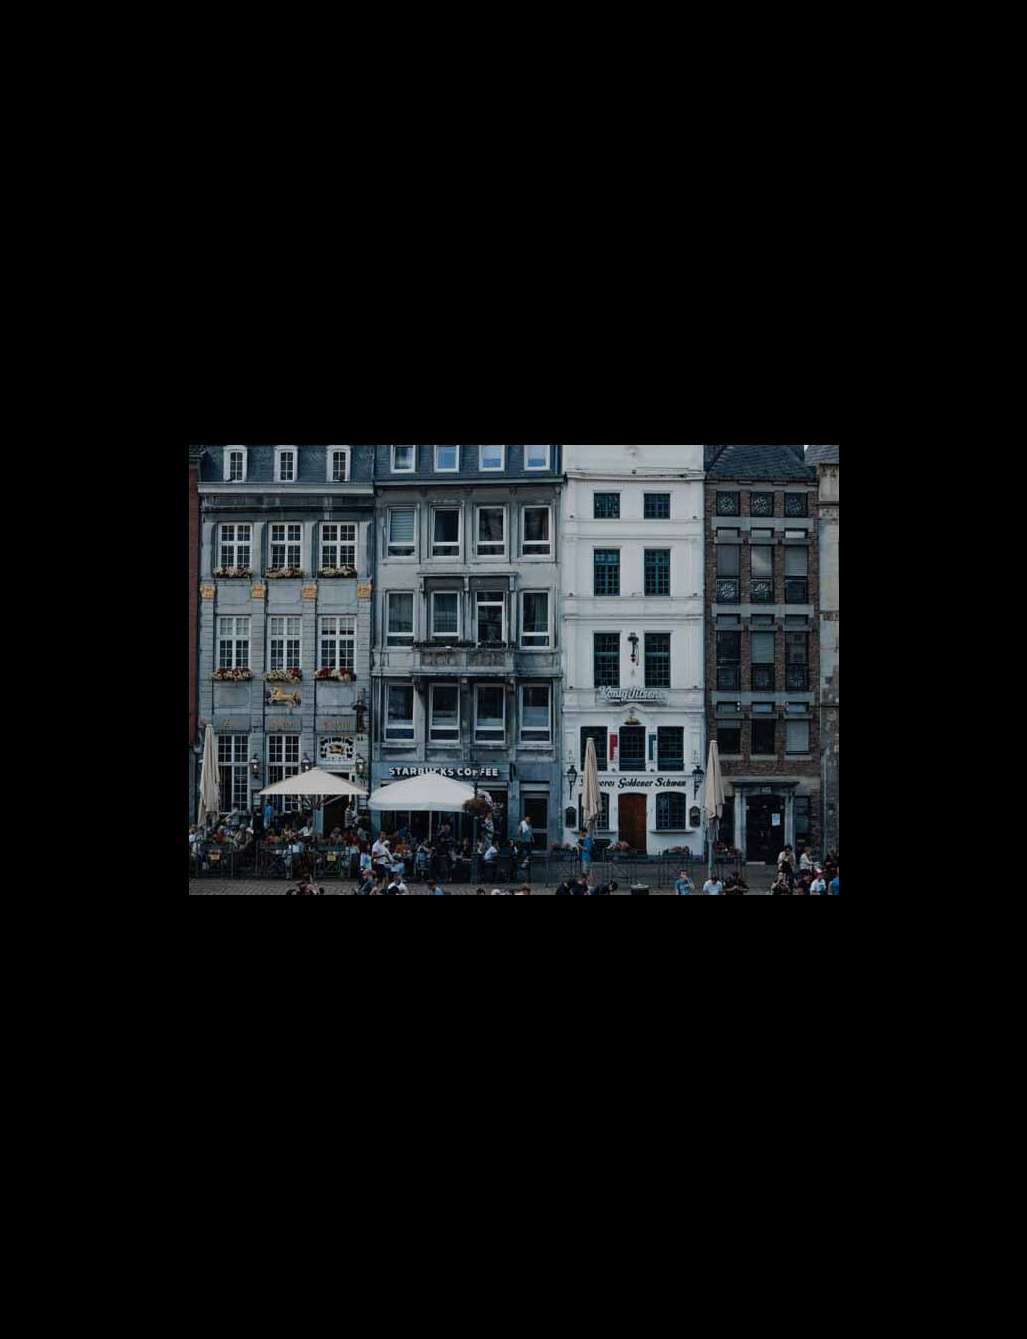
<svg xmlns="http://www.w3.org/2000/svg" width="1027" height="1339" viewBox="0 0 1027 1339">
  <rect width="100%" height="100%" fill="#000"/>
  <image x="189" y="445" width="650" height="450" href="img/1.png"/>
</svg>
